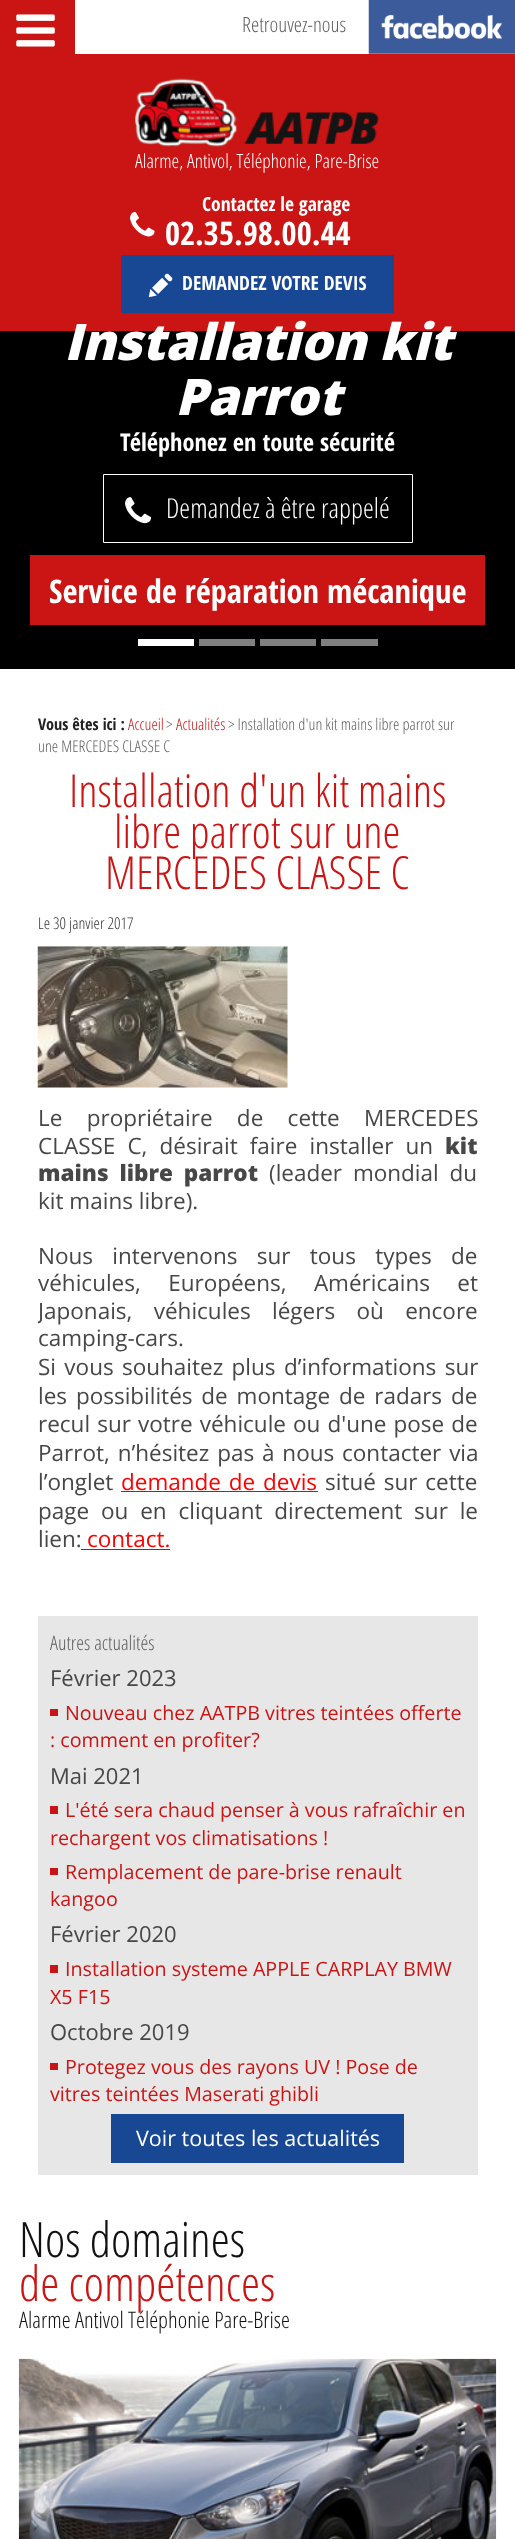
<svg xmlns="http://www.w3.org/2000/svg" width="515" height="2539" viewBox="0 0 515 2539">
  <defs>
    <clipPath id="clip1"><path d="M38 911h440v680H38z"/></clipPath>
  </defs>
  <rect width="100%" height="100%" fill="#fff"/>
  <path d="M0 0h515v331H0z" fill="#cb1414"/>
  <image x="16" y="14" width="39" height="33" href="img/1.png"/>
  <path d="M75 0h440v54H75z" fill="#fff"/>
  <image x="368" y="0" width="147" height="54" href="img/2.png"/>
  <image x="135" y="78" width="244" height="69" href="img/3.png"/>
  <image x="130" y="212" width="25" height="25" href="img/4.png"/>
  <path d="M121 255h273v58H121z" fill="#184794"/>
  <image x="148" y="273" width="25" height="25" href="img/5.png"/>
  <path d="M0 331h515v338H0z" fill="#000"/>
  <path d="M103.5 474.5h309v68H103.5z" fill="none" stroke="#fff"/>
  <image x="125" y="497" width="27" height="27" href="img/6.png"/>
  <path d="M30 555h455v70H30z" fill="#cb1414"/>
  <path d="M138 639h56v7H138z" fill="#fff"/>
  <path d="M199 639h56v7H199z" fill="#808080"/>
  <path d="M260 639h56v7H260z" fill="#808080"/>
  <path d="M321 639h57v7H321z" fill="#808080"/>
  <image x="37" y="946" width="251" height="142" href="img/7.png"/>
  <path d="M121 1491h197v1H121z" fill="#474747"/>
  <path d="M81 1549h89v1H81z" fill="#474747"/>
  <path d="M38 1616h440v559H38z" fill="#e7e7e7"/>
  <path d="M50 1709h8v7H50z" fill="#cb1414"/>
  <path d="M50 1806h8v8H50z" fill="#cb1414"/>
  <path d="M50 1868h8v7H50z" fill="#cb1414"/>
  <path d="M50 1965h8v8H50z" fill="#cb1414"/>
  <path d="M50 2063h8v7H50z" fill="#cb1414"/>
  <path d="M111 2114h293v49H111z" fill="#184794"/>
  <image x="18" y="2358" width="479" height="181" href="img/8.png"/>
  <text x="242" y="32" font-family="Open Sans Condensed" font-size="21" font-weight="300" fill="#5e5e5e">Retrouvez-nous</text>
  <text x="135" y="168" font-family="Open Sans Condensed" font-size="19.5" font-weight="300" fill="#fff">Alarme, Antivol, Téléphonie, Pare-Brise</text>
  <text x="202" y="211" font-family="Open Sans Condensed" font-size="19.5" font-weight="bold" fill="#fff">Contactez le garage</text>
  <text x="165" y="245" font-family="Open Sans Condensed" font-size="32.5" font-weight="bold" fill="#fff">02.35.98.00.44</text>
  <text x="182" y="290" font-family="Open Sans Condensed" font-size="19.5" font-weight="bold" fill="#fff">DEMANDEZ VOTRE DEVIS</text>
  <g font-family="Open Sans" font-size="50.5" font-weight="800" font-style="italic" fill="#fff">
    <text x="64" y="360">Installation kit</text>
    <text x="175" y="415">Parrot</text>
  </g>
  <text x="120" y="451" font-family="Open Sans Condensed" font-size="24.4" font-weight="bold" fill="#fff">Téléphonez en toute sécurité</text>
  <text x="166" y="518" font-family="Open Sans Condensed" font-size="27.5" font-weight="300" fill="#fff">Demandez à être rappelé</text>
  <text x="49" y="603" font-family="Open Sans Condensed" font-size="32.5" font-weight="bold" fill="#fff">Service de réparation mécanique</text>
  <text x="38" y="730" font-family="Open Sans Condensed" font-size="16.25" font-weight="bold" fill="#222">Vous êtes ici :</text>
  <text x="128" y="730" font-family="Open Sans Condensed" font-size="16.25" font-weight="300" fill="#cb1414">Accueil</text>
  <text x="166" y="730" font-family="Open Sans Condensed" font-size="16.25" font-weight="300" fill="#5e5e5e">&gt;</text>
  <text x="176" y="730" font-family="Open Sans Condensed" font-size="16.25" font-weight="300" fill="#cb1414">Actualités</text>
  <g font-family="Open Sans Condensed" font-size="16.25" font-weight="300" fill="#5e5e5e">
    <text x="228" y="730">&gt; Installation d'un kit mains libre parrot sur</text>
    <text x="38" y="752">une MERCEDES CLASSE C</text>
  </g>
  <g font-family="Open Sans Condensed" font-size="45.5" font-weight="300" fill="#cb1414">
    <text x="69" y="807">Installation d'un kit mains</text>
    <text x="114" y="848">libre parrot sur une</text>
    <text x="105" y="889">MERCEDES CLASSE C</text>
  </g>
  <text x="38" y="929" font-family="Open Sans Condensed" font-size="16.25" font-weight="300" fill="#333">Le 30 janvier 2017</text>
  <g font-family="Open Sans" font-size="22.5" fill="#474747">
    <text x="38" y="1126" word-spacing="18.5">Le propriétaire de cette MERCEDES</text>
    <text x="38" y="1154" word-spacing="6.25">CLASSE C, désirait faire installer un</text>
  </g>
  <g font-family="Open Sans" font-size="22.5" font-weight="800" fill="#474747">
    <text x="445" y="1154">kit</text>
    <text x="38" y="1181" word-spacing="5">mains libre parrot</text>
  </g>
  <g font-family="Open Sans" font-size="22.5" fill="#474747">
    <text x="269" y="1181" word-spacing="5">(leader mondial du</text>
    <text x="38" y="1209">kit mains libre).</text>
    <text x="38" y="1264" word-spacing="13.5">Nous intervenons sur tous types de</text>
    <text x="38" y="1291" word-spacing="21.5">véhicules, Européens, Américains et</text>
  </g>
  <g clip-path="url(#clip1)">
    <text x="38" y="1319" word-spacing="15.5" font-family="Open Sans" font-size="22.5" fill="#474747">Japonais, véhicules légers où encore</text>
  </g>
  <g font-family="Open Sans" font-size="22.5" fill="#474747">
    <text x="38" y="1346">camping-cars.</text>
    <text x="38" y="1375" word-spacing="2.5">Si vous souhaitez plus d’informations sur</text>
    <text x="38" y="1404" word-spacing="3">les possibilités de montage de radars de</text>
    <text x="38" y="1432" word-spacing="1.25">recul sur votre véhicule ou d'une pose de</text>
    <text x="38" y="1461" word-spacing="2">Parrot, n’hésitez pas à nous contacter via</text>
    <text x="38" y="1490">l’onglet</text>
  </g>
  <text x="121" y="1490" word-spacing="2" font-family="Open Sans" font-size="22.5" fill="#f00">demande de devis</text>
  <g font-family="Open Sans" font-size="22.5" fill="#474747">
    <text x="325" y="1490" word-spacing="2">situé sur cette</text>
    <text x="38" y="1519" word-spacing="6">page ou en cliquant directement sur le</text>
    <text x="38" y="1547">lien:</text>
  </g>
  <text x="87" y="1547" font-family="Open Sans" font-size="22.5" fill="#f00">contact.</text>
  <text x="50" y="1650" font-family="Open Sans Condensed" font-size="20" font-weight="300" fill="#5e5e5e">Autres actualités</text>
  <text x="50" y="1686" font-family="Open Sans" font-size="22" fill="#474747">Février 2023</text>
  <g font-family="Open Sans" font-size="19.7" fill="#cb1414">
    <text x="65" y="1720">Nouveau chez AATPB vitres teintées offerte</text>
    <text x="50" y="1747">: comment en profiter?</text>
  </g>
  <text x="50" y="1784" font-family="Open Sans" font-size="22" fill="#474747">Mai 2021</text>
  <g font-family="Open Sans" font-size="19.7" fill="#cb1414">
    <text x="65" y="1817">L'été sera chaud penser à vous rafraîchir en</text>
    <text x="50" y="1845">rechargent vos climatisations !</text>
    <text x="65" y="1879">Remplacement de pare-brise renault</text>
    <text x="50" y="1906">kangoo</text>
  </g>
  <text x="50" y="1942" font-family="Open Sans" font-size="22" fill="#474747">Février 2020</text>
  <g font-family="Open Sans" font-size="19.7" fill="#cb1414">
    <text x="65" y="1976">Installation systeme APPLE CARPLAY BMW</text>
    <text x="50" y="2004">X5 F15</text>
  </g>
  <text x="50" y="2040" font-family="Open Sans" font-size="22" fill="#474747">Octobre 2019</text>
  <g font-family="Open Sans" font-size="19.7" fill="#cb1414">
    <text x="65" y="2074">Protegez vous des rayons UV ! Pose de</text>
    <text x="50" y="2101">vitres teintées Maserati ghibli</text>
  </g>
  <text x="136" y="2146" font-family="Open Sans" font-size="21.5" fill="#fff">Voir toutes les actualités</text>
  <text x="19" y="2257" font-family="Open Sans Condensed" font-size="48.75" font-weight="300" fill="#111">Nos domaines</text>
  <text x="19" y="2301" font-family="Open Sans Condensed" font-size="48.75" font-weight="300" fill="#cb1414">de compétences</text>
  <text x="19" y="2328" font-family="Open Sans Condensed" font-size="22.75" font-weight="300" fill="#111">Alarme Antivol Téléphonie Pare-Brise</text>
</svg>
